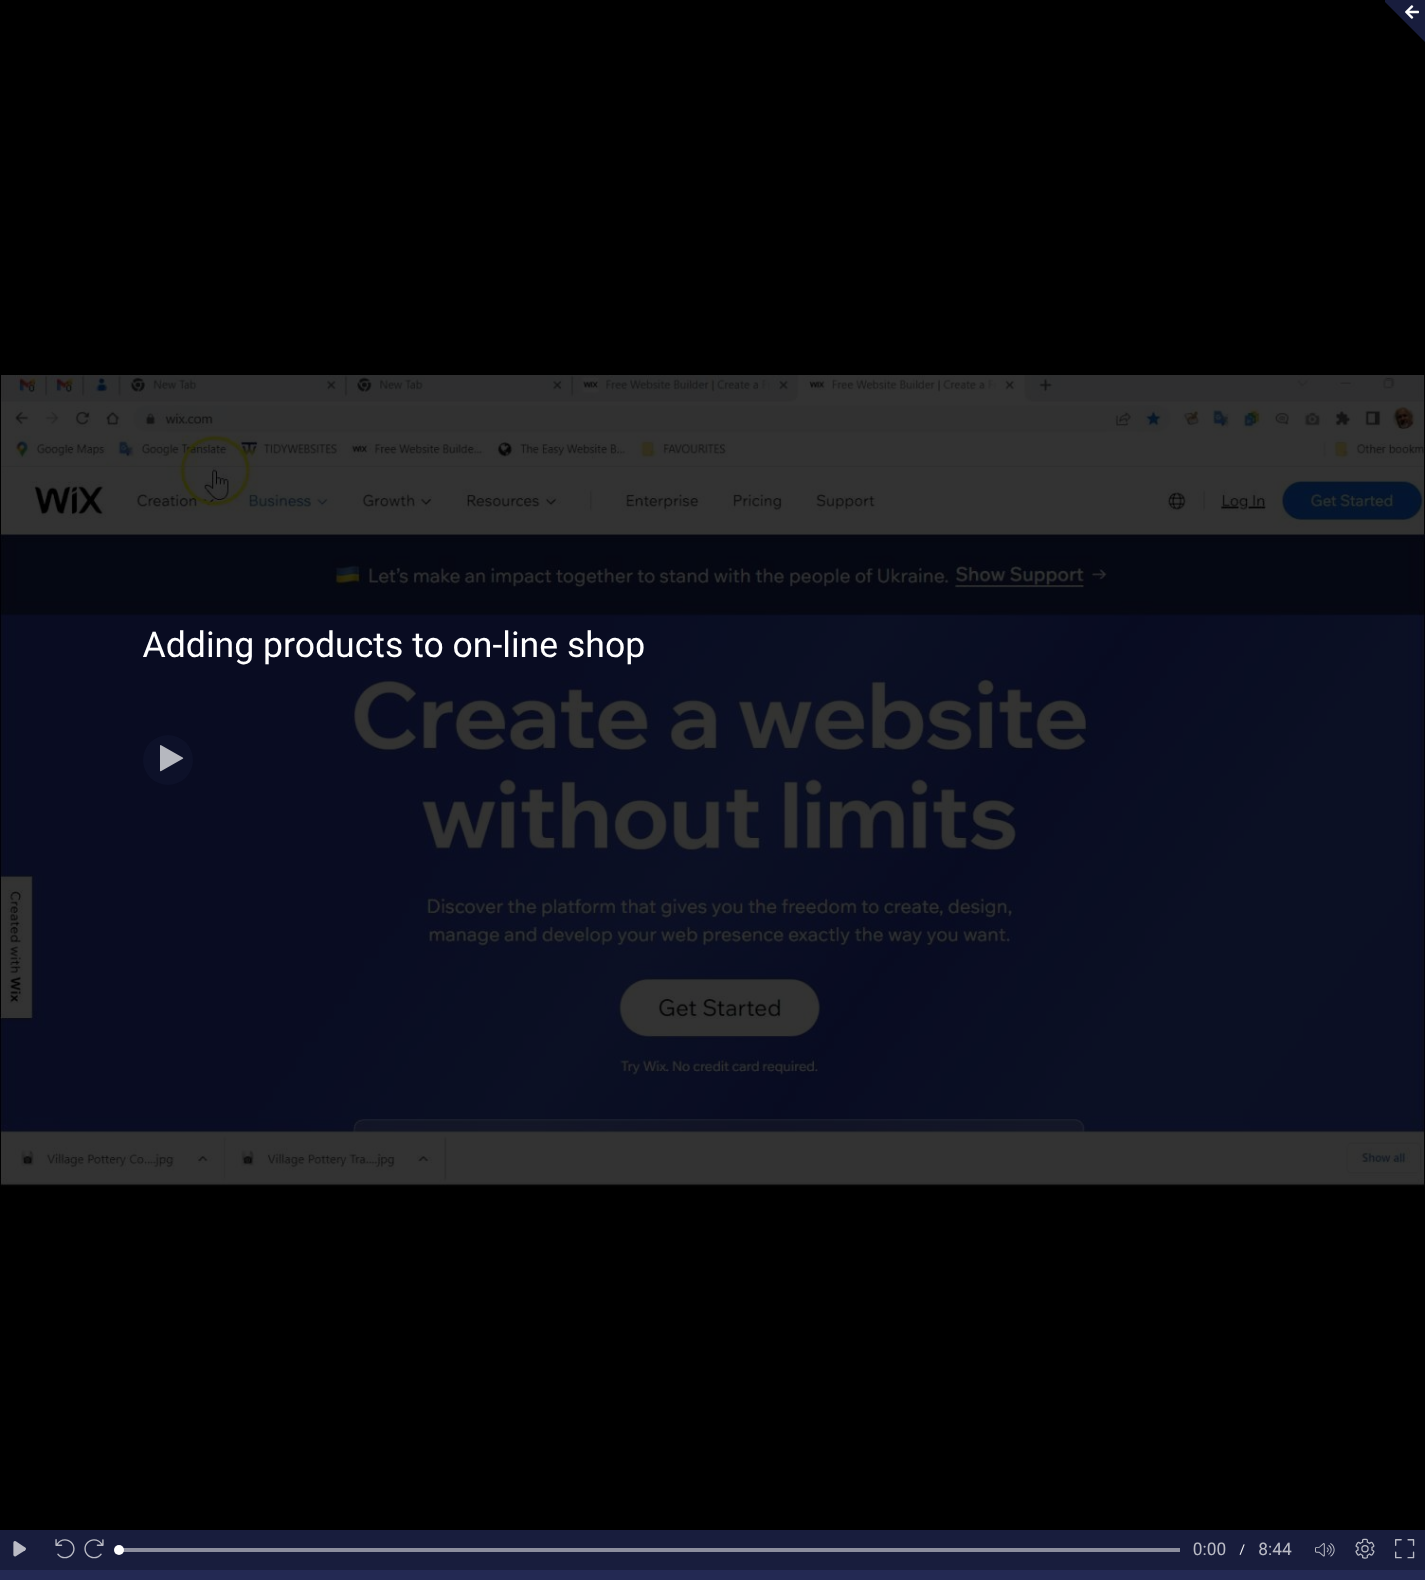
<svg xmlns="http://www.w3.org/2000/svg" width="1425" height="1580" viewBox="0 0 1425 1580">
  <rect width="100%" height="100%" fill="#232953"/>
  <image x="0" y="0" width="1425" height="1570" href="img/1.png"/>
  <path d="M1425 0V42L1385 2V0Z" fill="#181d3d"/>
  <image x="1405" y="5" width="14" height="14" href="img/2.png"/>
</svg>
